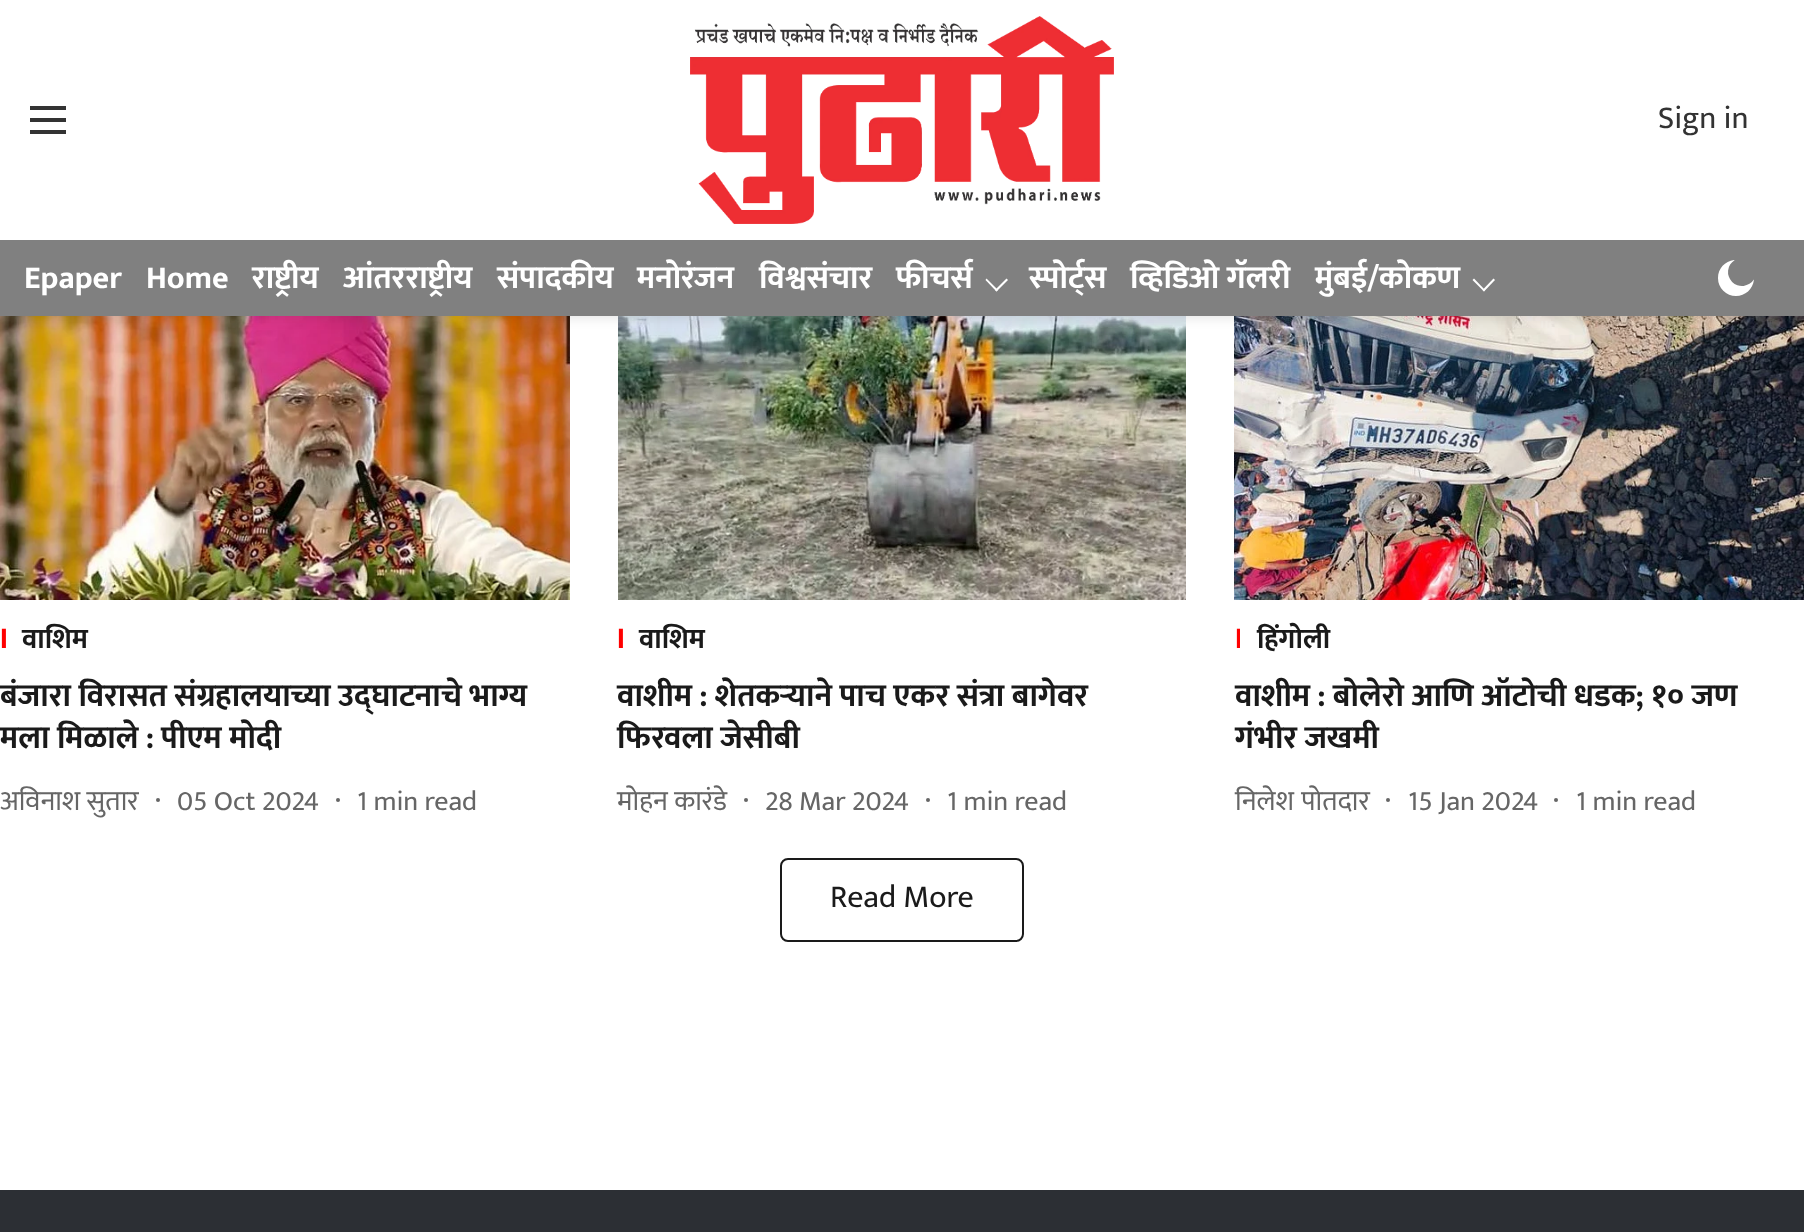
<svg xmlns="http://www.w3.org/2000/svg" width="1804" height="1232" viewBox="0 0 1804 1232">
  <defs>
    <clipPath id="clip1"><path d="M1234 616h6v46H1234z"/></clipPath>
  </defs>
  <rect width="100%" height="100%" fill="#fff"/>
  <image x="0" y="316" width="570" height="284" href="img/4.png"/>
  <image x="618" y="316" width="568" height="284" href="img/5.png"/>
  <image x="1234" y="316" width="570" height="284" href="img/6.png"/>
  <path d="M0 2h1804v316H0z" fill="#0000001a" filter="blur(6px)"/>
  <path d="M0 0h1804v240H0z" fill="#fff"/>
  <image x="30" y="106" width="36" height="28" href="img/1.png"/>
  <image x="690" y="16" width="424" height="208" href="img/2.png"/>
  <path d="M0 240h1804v76H0z" fill="#808080"/>
  <path d="M1006.5 278.5L1008 280L996.5 291.5L995 290Z" fill="#fff"/>
  <path d="M986.5 278.5L998 290L996.5 291.5L985.5 280Z" fill="#fff"/>
  <path d="M1493.5 278.5L1495 280L1484 291.5L1482.5 290Z" fill="#fff"/>
  <path d="M1474 278.5L1485 290L1484 291.5L1472.5 280Z" fill="#fff"/>
  <image x="1718" y="260" width="36" height="36" href="img/3.png"/>
  <circle cx="158" cy="800" r="2" fill="#666"/>
  <circle cx="338" cy="800" r="2" fill="#666"/>
  <circle cx="746" cy="800" r="2" fill="#666"/>
  <circle cx="928" cy="800" r="2" fill="#666"/>
  <circle cx="1388" cy="800" r="2" fill="#666"/>
  <circle cx="1556" cy="800" r="2" fill="#666"/>
  <rect x="781" y="859" width="242" height="82" rx="7" fill="none" stroke="#1a1a1a" stroke-width="2"/>
  <path d="M0 1190h1804v42H0z" fill="#2c2f34"/>
  <text x="1658" y="128" font-family="Mukta" font-size="32" fill="#333">Sign in</text>
  <g font-family="Mukta" font-size="32" font-weight="bold" fill="#fff">
    <text x="24" y="288">Epaper</text>
    <text x="146" y="288">Home</text>
    <text x="252" y="288">राष्ट्रीय</text>
    <text x="343" y="288">आंतरराष्ट्रीय</text>
    <text x="497" y="288">संपादकीय</text>
    <text x="637" y="288">मनोरंजन</text>
    <text x="759" y="288">विश्वसंचार</text>
    <text x="896" y="288">फीचर्स</text>
    <text x="1029" y="288">स्पोर्ट्स</text>
    <text x="1130" y="288">व्हिडिओ गॅलरी</text>
    <text x="1315" y="288">मुंबई/कोकण</text>
  </g>
  <text x="0" y="648" font-family="Liberation Sans" font-size="28" font-weight="bold" fill="#f00">I</text>
  <text x="22" y="648" font-family="Mukta" font-size="28" font-weight="bold" fill="#1a1a1a">वाशिम</text>
  <g font-family="Mukta" font-size="32" font-weight="bold" fill="#1a1a1a">
    <text x="0" y="706">बंजारा विरासत संग्रहालयाच्या उद्घाटनाचे भाग्य</text>
    <text x="0" y="748">मला मिळाले : पीएम मोदी</text>
  </g>
  <g font-family="Mukta" font-size="28" fill="#666">
    <text x="0" y="810">अविनाश सुतार</text>
    <text x="177" y="810">05 Oct 2024</text>
    <text x="357" y="810">1 min read</text>
  </g>
  <text x="617" y="648" font-family="Liberation Sans" font-size="28" font-weight="bold" fill="#f00">I</text>
  <text x="639" y="648" font-family="Mukta" font-size="28" font-weight="bold" fill="#1a1a1a">वाशिम</text>
  <g font-family="Mukta" font-size="32" font-weight="bold" fill="#1a1a1a">
    <text x="617" y="706">वाशीम : शेतकऱ्याने पाच एकर संत्रा बागेवर</text>
    <text x="617" y="748">फिरवला जेसीबी</text>
  </g>
  <g font-family="Mukta" font-size="28" fill="#666">
    <text x="617" y="810">मोहन कारंडे</text>
    <text x="765" y="810">28 Mar 2024</text>
    <text x="947" y="810">1 min read</text>
  </g>
  <g clip-path="url(#clip1)">
    <text x="1235" y="648" font-family="Liberation Sans" font-size="28" font-weight="bold" fill="#f00">I</text>
  </g>
  <text x="1257" y="648" font-family="Mukta" font-size="28" font-weight="bold" fill="#1a1a1a">हिंगोली</text>
  <g font-family="Mukta" font-size="32" font-weight="bold" fill="#1a1a1a">
    <text x="1235" y="706">वाशीम : बोलेरो आणि ऑटोची धडक; १० जण</text>
    <text x="1235" y="748">गंभीर जखमी</text>
  </g>
  <g font-family="Mukta" font-size="28" fill="#666">
    <text x="1235" y="810" word-spacing="1">निलेश पोतदार</text>
    <text x="1408" y="810">15 Jan 2024</text>
    <text x="1576" y="810">1 min read</text>
  </g>
  <text x="830" y="907" font-family="Mukta" font-size="32" fill="#1a1a1a">Read More</text>
</svg>
